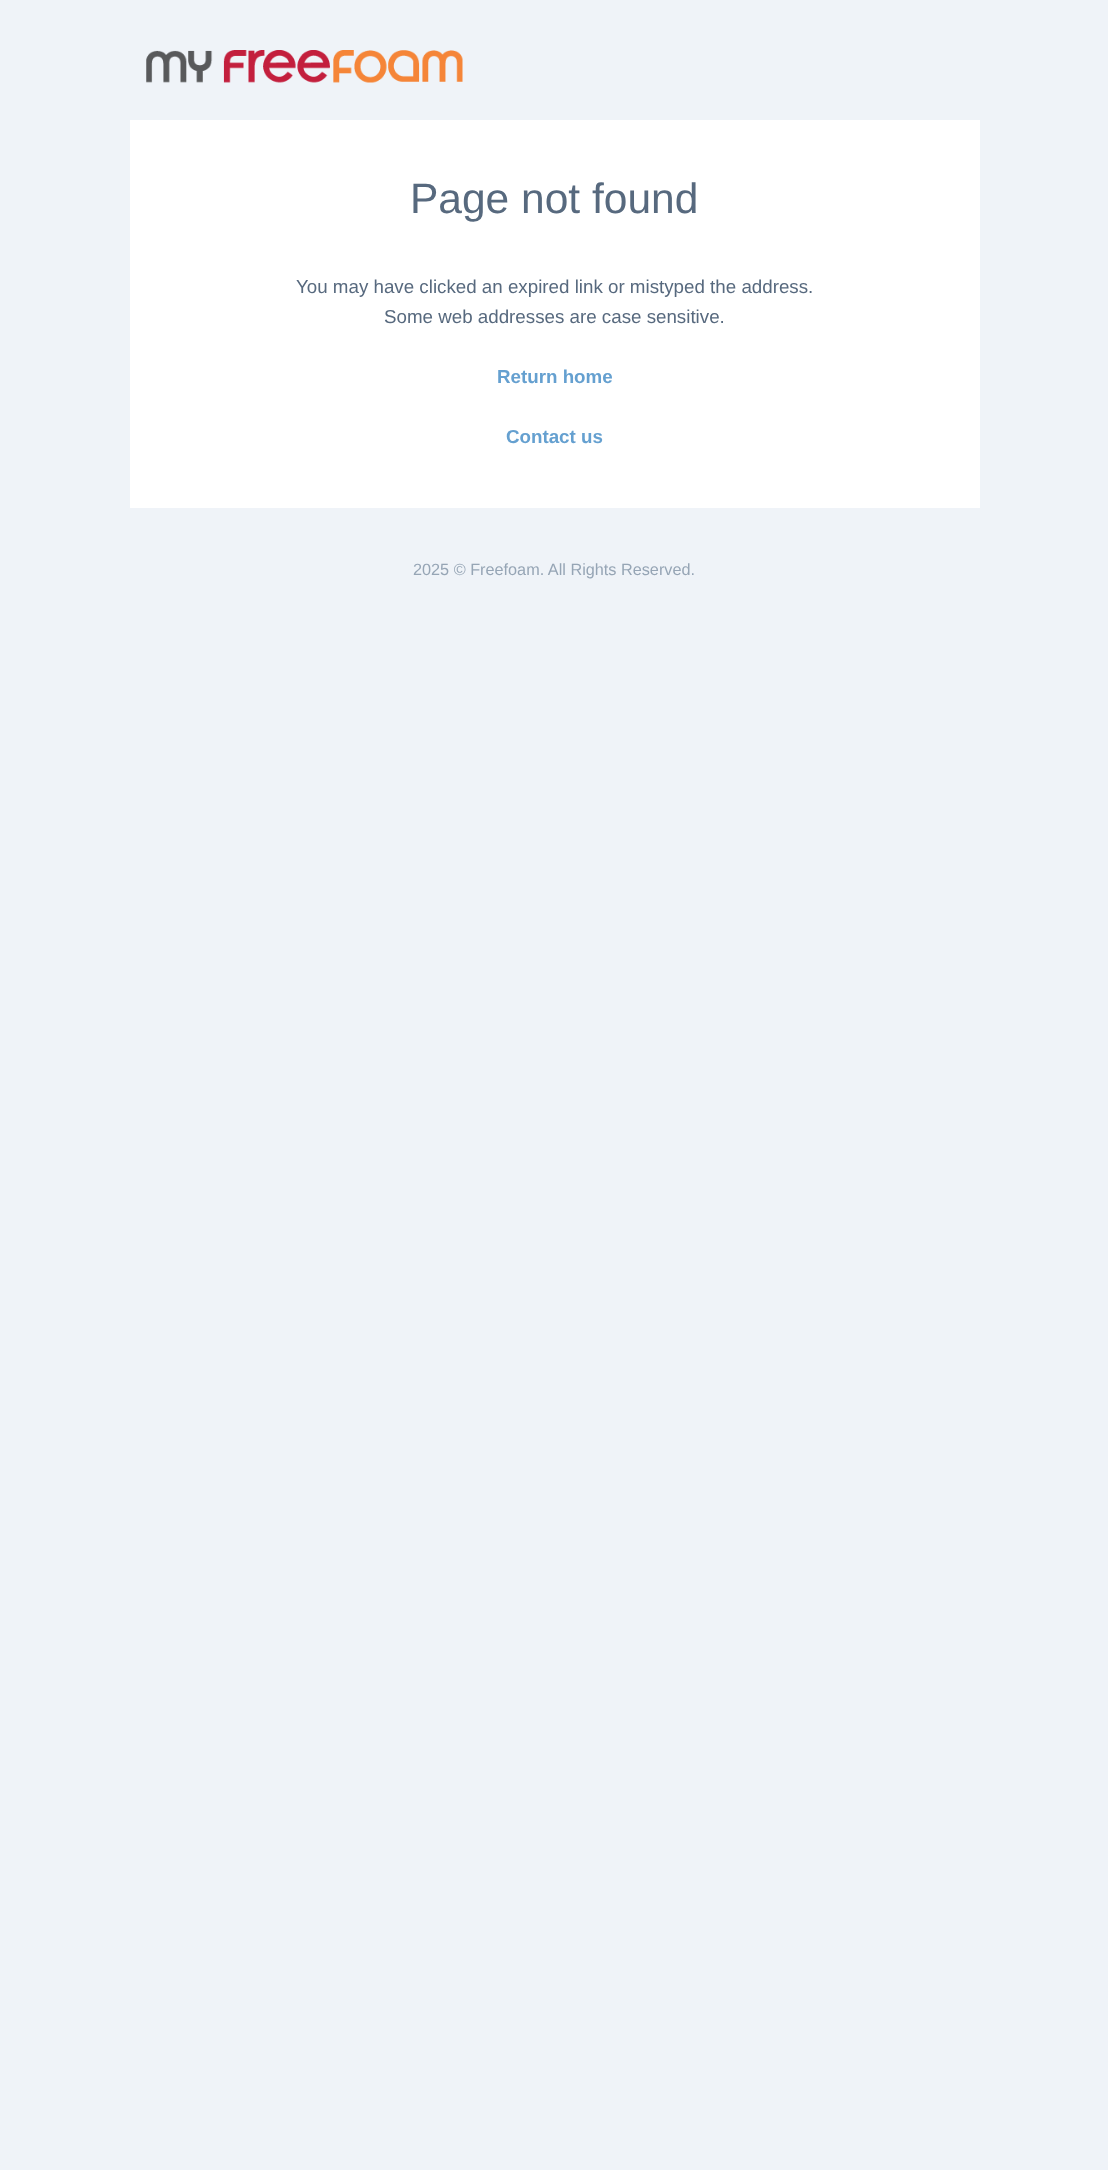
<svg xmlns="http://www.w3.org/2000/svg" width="1108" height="2170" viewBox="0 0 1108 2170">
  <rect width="100%" height="100%" fill="#eff3f8"/>
  <image x="146" y="50" width="317" height="33" href="img/1.png"/>
  <path d="M130 120h850v388H130z" fill="#fff"/>
  <text x="410" y="213" font-family="Liberation Sans" font-size="42.5" fill="#57697e">Page not found</text>
  <g font-family="Liberation Sans" font-size="18.75" fill="#57697e">
    <text x="296" y="293">You may have clicked an expired link or mistyped the address.</text>
    <text x="384" y="323">Some web addresses are case sensitive.</text>
  </g>
  <g font-family="Liberation Sans" font-size="18.75" font-weight="bold" fill="#65a0d0">
    <text x="497" y="383">Return home</text>
    <text x="506" y="443">Contact us</text>
  </g>
  <text x="413" y="575" font-family="Liberation Sans" font-size="16.25" fill="#96a5b5">2025 © Freefoam. All Rights Reserved.</text>
</svg>
